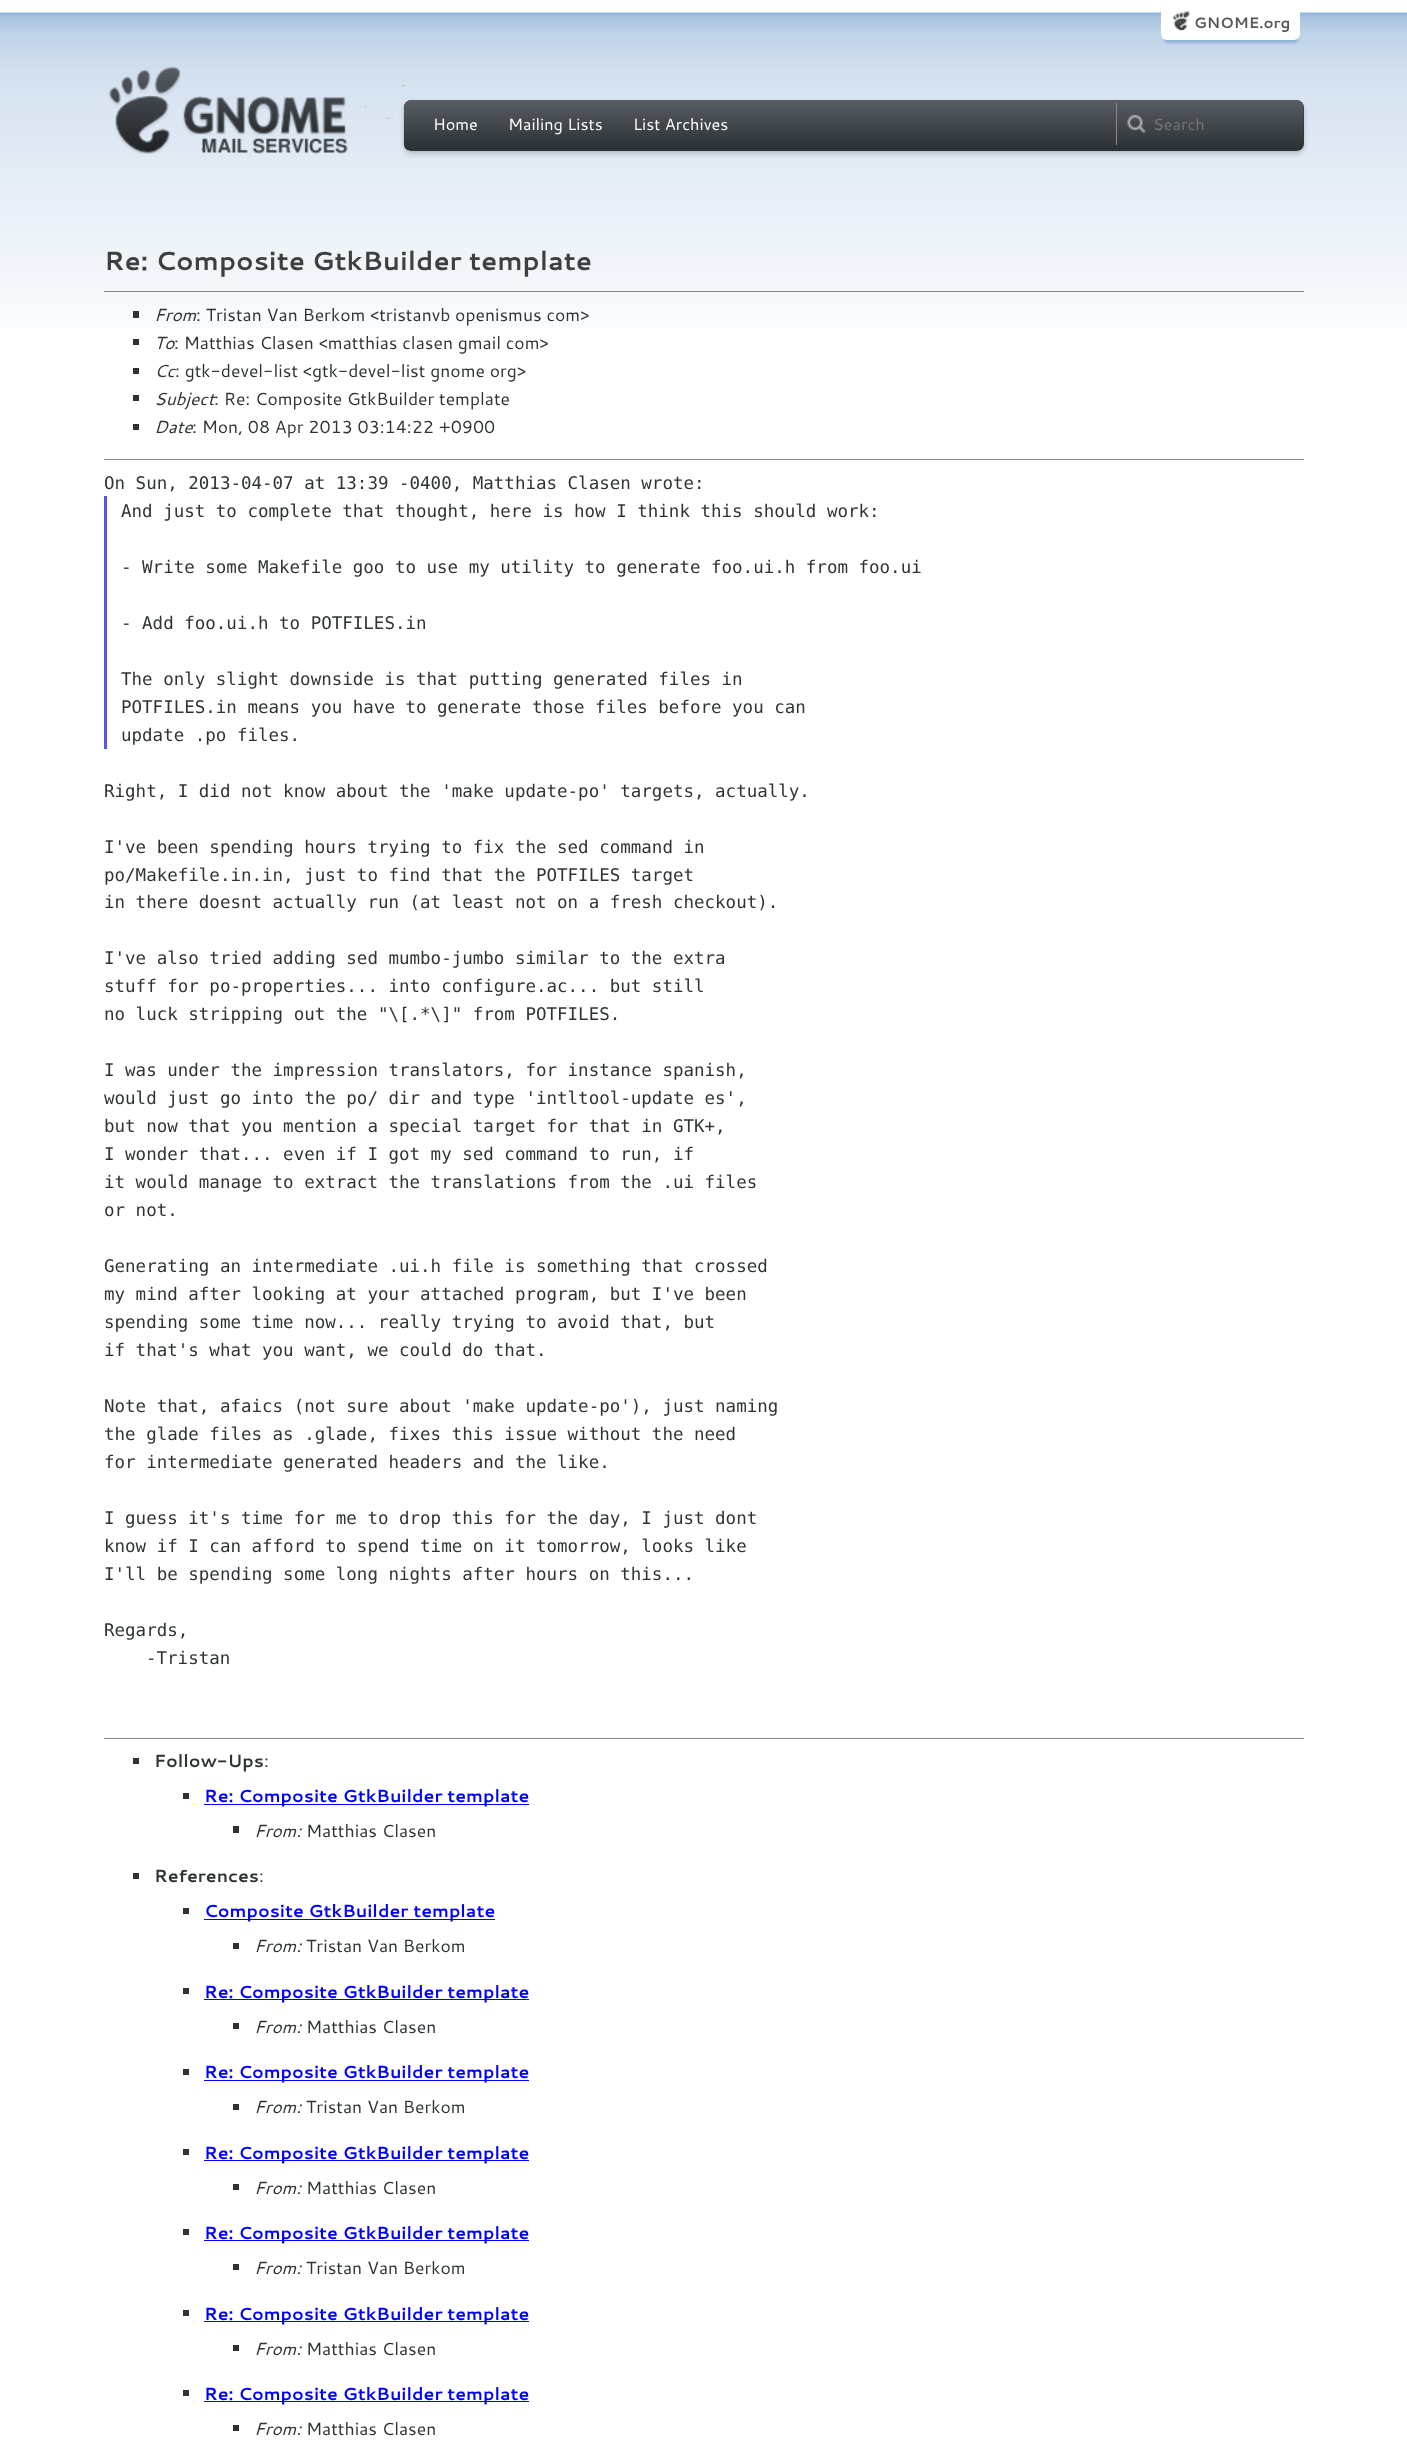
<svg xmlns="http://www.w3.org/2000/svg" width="1407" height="2444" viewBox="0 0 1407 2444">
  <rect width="100%" height="100%" fill="#fff"/>
  <image x="0" y="12" width="1407" height="316" href="img/1.png"/>
  <rect x="1164" y="13" width="134" height="30" rx="4" fill="#8fb3d9" filter="blur(1px)"/>
  <rect x="1161" y="5" width="139" height="35" rx="6" fill="#fff"/>
  <image x="1172" y="11" width="19" height="20" href="img/2.png"/>
  <image x="108" y="67" width="299" height="87" href="img/3.png"/>
  <rect x="404" y="103" width="900" height="51" rx="8" fill="#00000033" filter="blur(2.5px)"/>
  <rect x="404" y="100" width="900" height="51" rx="8" fill="#2e3436"/>
  <image x="403" y="100" width="901" height="50" href="img/4.png"/>
  <image x="1127" y="115" width="19" height="19" href="img/5.png"/>
  <path d="M1116 103h1v42H1116z" fill="#888"/>
  <path d="M104 291h1200v1H104z" fill="#888"/>
  <path d="M133 311h6v7H133z" fill="#2e3436"/>
  <path d="M133 339h6v6H133z" fill="#2e3436"/>
  <path d="M133 368h6v6H133z" fill="#2e3436"/>
  <path d="M133 395h6v6H133z" fill="#2e3436"/>
  <path d="M133 424h6v6H133z" fill="#2e3436"/>
  <path d="M104 459h1200v1H104z" fill="#888"/>
  <path d="M104 496h3v253H104z" fill="#55e"/>
  <path d="M104 1738h1200v1H104z" fill="#888"/>
  <path d="M133 1758h6v6H133z" fill="#2e3436"/>
  <path d="M183 1793h6v6H183z" fill="#2e3436"/>
  <path d="M204 1804h325v1H204z" fill="#00f"/>
  <path d="M233 1826h6v7H233z" fill="#2e3436"/>
  <path d="M133 1873h6v6H133z" fill="#2e3436"/>
  <path d="M183 1908h6v6H183z" fill="#2e3436"/>
  <path d="M204 1919h291v1H204z" fill="#00f"/>
  <path d="M233 1943h6v6H233z" fill="#2e3436"/>
  <path d="M183 1988h6v6H183z" fill="#2e3436"/>
  <path d="M204 1999h325v1H204z" fill="#00f"/>
  <path d="M233 2023h6v6H233z" fill="#2e3436"/>
  <path d="M183 2069h6v6H183z" fill="#2e3436"/>
  <path d="M204 2080h325v1H204z" fill="#00f"/>
  <path d="M233 2104h6v6H233z" fill="#2e3436"/>
  <path d="M183 2149h6v6H183z" fill="#2e3436"/>
  <path d="M204 2160h325v1H204z" fill="#00f"/>
  <path d="M233 2184h6v6H233z" fill="#2e3436"/>
  <path d="M183 2229h6v6H183z" fill="#2e3436"/>
  <path d="M204 2240h325v1H204z" fill="#00f"/>
  <path d="M233 2264h6v6H233z" fill="#2e3436"/>
  <path d="M183 2310h6v6H183z" fill="#2e3436"/>
  <path d="M204 2321h325v1H204z" fill="#00f"/>
  <path d="M233 2345h6v6H233z" fill="#2e3436"/>
  <path d="M183 2390h6v6H183z" fill="#2e3436"/>
  <path d="M204 2401h325v1H204z" fill="#00f"/>
  <path d="M233 2425h6v6H233z" fill="#2e3436"/>
  <text x="1194" y="28" font-family="Cantarell" font-size="15" font-weight="bold" fill="#555753">GNOME.org</text>
  <g font-family="Cantarell" font-size="16.25" fill="#fff">
    <text x="433" y="130">Home</text>
    <text x="508" y="130">Mailing Lists</text>
    <text x="633" y="130">List Archives</text>
  </g>
  <text x="1153" y="130" font-family="Cantarell" font-size="16.25" fill="#757575">Search</text>
  <text x="104" y="270" font-family="Cantarell" font-size="26.25" font-weight="bold" fill="#3f3f3f">Re: Composite GtkBuilder template</text>
  <text x="154" y="321" font-family="Cantarell" font-size="17.5" font-style="italic" fill="#2e3436">From</text>
  <text x="196" y="321" font-family="Cantarell" font-size="17.5" fill="#2e3436">: Tristan Van Berkom &lt;tristanvb openismus com&gt;</text>
  <text x="154" y="349" font-family="Cantarell" font-size="17.5" font-style="italic" fill="#2e3436">To</text>
  <text x="174" y="349" font-family="Cantarell" font-size="17.5" fill="#2e3436">: Matthias Clasen &lt;matthias clasen gmail com&gt;</text>
  <text x="154" y="377" font-family="Cantarell" font-size="17.5" font-style="italic" fill="#2e3436">Cc</text>
  <text x="175" y="377" font-family="Cantarell" font-size="17.5" fill="#2e3436">: gtk-devel-list &lt;gtk-devel-list gnome org&gt;</text>
  <text x="154" y="405" font-family="Cantarell" font-size="17.5" font-style="italic" fill="#2e3436">Subject</text>
  <text x="214" y="405" font-family="Cantarell" font-size="17.5" fill="#2e3436">: Re: Composite GtkBuilder template</text>
  <text x="154" y="433" font-family="Cantarell" font-size="17.5" font-style="italic" fill="#2e3436">Date</text>
  <text x="192" y="433" font-family="Cantarell" font-size="17.5" fill="#2e3436">: Mon, 08 Apr 2013 03:14:22 +0900</text>
  <g font-family="DejaVu Sans Mono" font-size="17.5" fill="#2e3436">
    <text x="104" y="489">On Sun, 2013-04-07 at 13:39 -0400, Matthias Clasen wrote:</text>
    <text x="121" y="517">And just to complete that thought, here is how I think this should work:</text>
    <text x="121" y="573">- Write some Makefile goo to use my utility to generate foo.ui.h from foo.ui</text>
    <text x="121" y="629">- Add foo.ui.h to POTFILES.in</text>
    <text x="121" y="685">The only slight downside is that putting generated files in</text>
    <text x="121" y="713">POTFILES.in means you have to generate those files before you can</text>
    <text x="121" y="741">update .po files.</text>
    <text x="104" y="797">Right, I did not know about the 'make update-po' targets, actually.</text>
    <text x="104" y="853">I've been spending hours trying to fix the sed command in</text>
    <text x="104" y="881">po/Makefile.in.in, just to find that the POTFILES target</text>
    <text x="104" y="908">in there doesnt actually run (at least not on a fresh checkout).</text>
    <text x="104" y="964">I've also tried adding sed mumbo-jumbo similar to the extra</text>
    <text x="104" y="992">stuff for po-properties... into configure.ac... but still</text>
    <text x="104" y="1020">no luck stripping out the "\[.*\]" from POTFILES.</text>
    <text x="104" y="1076">I was under the impression translators, for instance spanish,</text>
    <text x="104" y="1104">would just go into the po/ dir and type 'intltool-update es',</text>
    <text x="104" y="1132">but now that you mention a special target for that in GTK+,</text>
    <text x="104" y="1160">I wonder that... even if I got my sed command to run, if</text>
    <text x="104" y="1188">it would manage to extract the translations from the .ui files</text>
    <text x="104" y="1216">or not.</text>
    <text x="104" y="1272">Generating an intermediate .ui.h file is something that crossed</text>
    <text x="104" y="1300">my mind after looking at your attached program, but I've been</text>
    <text x="104" y="1328">spending some time now... really trying to avoid that, but</text>
    <text x="104" y="1356">if that's what you want, we could do that.</text>
    <text x="104" y="1412">Note that, afaics (not sure about 'make update-po'), just naming</text>
    <text x="104" y="1440">the glade files as .glade, fixes this issue without the need</text>
    <text x="104" y="1468">for intermediate generated headers and the like.</text>
    <text x="104" y="1524">I guess it's time for me to drop this for the day, I just dont</text>
    <text x="104" y="1552">know if I can afford to spend time on it tomorrow, looks like</text>
    <text x="104" y="1580">I'll be spending some long nights after hours on this...</text>
    <text x="104" y="1636">Regards,</text>
    <text x="146" y="1664">-Tristan</text>
  </g>
  <text x="154" y="1767" font-family="Cantarell" font-size="17.5" font-weight="bold" fill="#2e3436">Follow-Ups</text>
  <text x="264" y="1767" font-family="Cantarell" font-size="17.5" fill="#2e3436">:</text>
  <text x="204" y="1802" font-family="Cantarell" font-size="17.5" font-weight="bold" fill="#00f">Re: Composite GtkBuilder template</text>
  <text x="254" y="1837" font-family="Cantarell" font-size="17.5" font-style="italic" fill="#2e3436">From:</text>
  <text x="306" y="1837" font-family="Cantarell" font-size="17.5" fill="#2e3436">Matthias Clasen</text>
  <text x="154" y="1882" font-family="Cantarell" font-size="17.5" font-weight="bold" fill="#2e3436">References</text>
  <text x="259" y="1882" font-family="Cantarell" font-size="17.5" fill="#2e3436">:</text>
  <text x="204" y="1917" font-family="Cantarell" font-size="17.5" font-weight="bold" fill="#00f">Composite GtkBuilder template</text>
  <text x="254" y="1952" font-family="Cantarell" font-size="17.5" font-style="italic" fill="#2e3436">From:</text>
  <text x="306" y="1952" font-family="Cantarell" font-size="17.5" fill="#2e3436">Tristan Van Berkom</text>
  <text x="204" y="1998" font-family="Cantarell" font-size="17.5" font-weight="bold" fill="#00f">Re: Composite GtkBuilder template</text>
  <text x="254" y="2033" font-family="Cantarell" font-size="17.5" font-style="italic" fill="#2e3436">From:</text>
  <text x="306" y="2033" font-family="Cantarell" font-size="17.5" fill="#2e3436">Matthias Clasen</text>
  <text x="204" y="2078" font-family="Cantarell" font-size="17.5" font-weight="bold" fill="#00f">Re: Composite GtkBuilder template</text>
  <text x="254" y="2113" font-family="Cantarell" font-size="17.5" font-style="italic" fill="#2e3436">From:</text>
  <text x="306" y="2113" font-family="Cantarell" font-size="17.5" fill="#2e3436">Tristan Van Berkom</text>
  <text x="204" y="2159" font-family="Cantarell" font-size="17.5" font-weight="bold" fill="#00f">Re: Composite GtkBuilder template</text>
  <text x="254" y="2194" font-family="Cantarell" font-size="17.5" font-style="italic" fill="#2e3436">From:</text>
  <text x="306" y="2194" font-family="Cantarell" font-size="17.5" fill="#2e3436">Matthias Clasen</text>
  <text x="204" y="2239" font-family="Cantarell" font-size="17.5" font-weight="bold" fill="#00f">Re: Composite GtkBuilder template</text>
  <text x="254" y="2274" font-family="Cantarell" font-size="17.5" font-style="italic" fill="#2e3436">From:</text>
  <text x="306" y="2274" font-family="Cantarell" font-size="17.5" fill="#2e3436">Tristan Van Berkom</text>
  <text x="204" y="2320" font-family="Cantarell" font-size="17.5" font-weight="bold" fill="#00f">Re: Composite GtkBuilder template</text>
  <text x="254" y="2355" font-family="Cantarell" font-size="17.5" font-style="italic" fill="#2e3436">From:</text>
  <text x="306" y="2355" font-family="Cantarell" font-size="17.5" fill="#2e3436">Matthias Clasen</text>
  <text x="204" y="2400" font-family="Cantarell" font-size="17.5" font-weight="bold" fill="#00f">Re: Composite GtkBuilder template</text>
  <text x="254" y="2435" font-family="Cantarell" font-size="17.5" font-style="italic" fill="#2e3436">From:</text>
  <text x="306" y="2435" font-family="Cantarell" font-size="17.5" fill="#2e3436">Matthias Clasen</text>
</svg>
